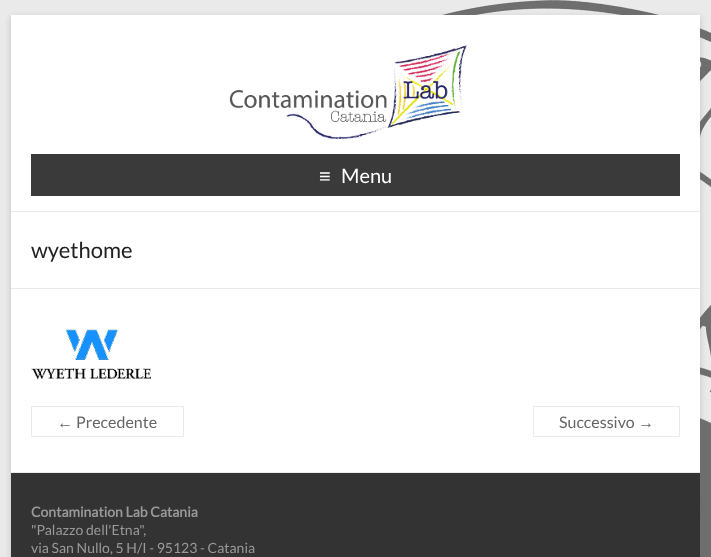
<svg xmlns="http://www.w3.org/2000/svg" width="711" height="557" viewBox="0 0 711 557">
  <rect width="100%" height="100%" fill="#eaeaea"/>
  <image x="439" y="0" width="272" height="557" href="img/1.png"/>
  <path d="M11 17h689v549H11z" fill="#6464644d" filter="blur(3px)"/>
  <path d="M11 15h689v457H11z" fill="#fff"/>
  <path d="M11 211h689v1H11z" fill="#eaeaea"/>
  <image x="229" y="45" width="238" height="94" href="img/2.png"/>
  <path d="M31 154h649v42H31z" fill="#3a3a3a"/>
  <path d="M11 288h689v1H11z" fill="#eaeaea"/>
  <image x="31" y="329" width="120" height="50" href="img/3.png"/>
  <path d="M31.5 406.5h152v30H31.5z" fill="none" stroke="#eaeaea"/>
  <path d="M533.5 406.5h146v30H533.5z" fill="none" stroke="#eaeaea"/>
  <path d="M11 473h689v84H11z" fill="#333"/>
  <path d="M11 472h689v1H11z" fill="#eaeaea"/>
  <text x="319" y="183" font-family="Liberation Sans" font-size="20" fill="#fff">≡</text>
  <text x="341" y="183" font-family="Lato" font-size="20" fill="#fff">Menu</text>
  <text x="31" y="258" font-family="Lato" font-size="22" fill="#222">wyethome</text>
  <text x="57" y="428" font-family="Liberation Sans" font-size="16" fill="#666">←</text>
  <g font-family="Lato" font-size="16" fill="#666">
    <text x="76" y="428">Precedente</text>
    <text x="559" y="428">Successivo</text>
  </g>
  <text x="638" y="428" font-family="Liberation Sans" font-size="16" fill="#666">→</text>
  <text x="31" y="517" font-family="Lato" font-size="14" font-weight="bold" fill="#999">Contamination Lab Catania</text>
  <g font-family="Lato" font-size="14" fill="#999">
    <text x="31" y="535">"Palazzo dell'Etna",</text>
    <text x="31" y="553">via San Nullo, 5 H/I - 95123 - Catania</text>
  </g>
</svg>
